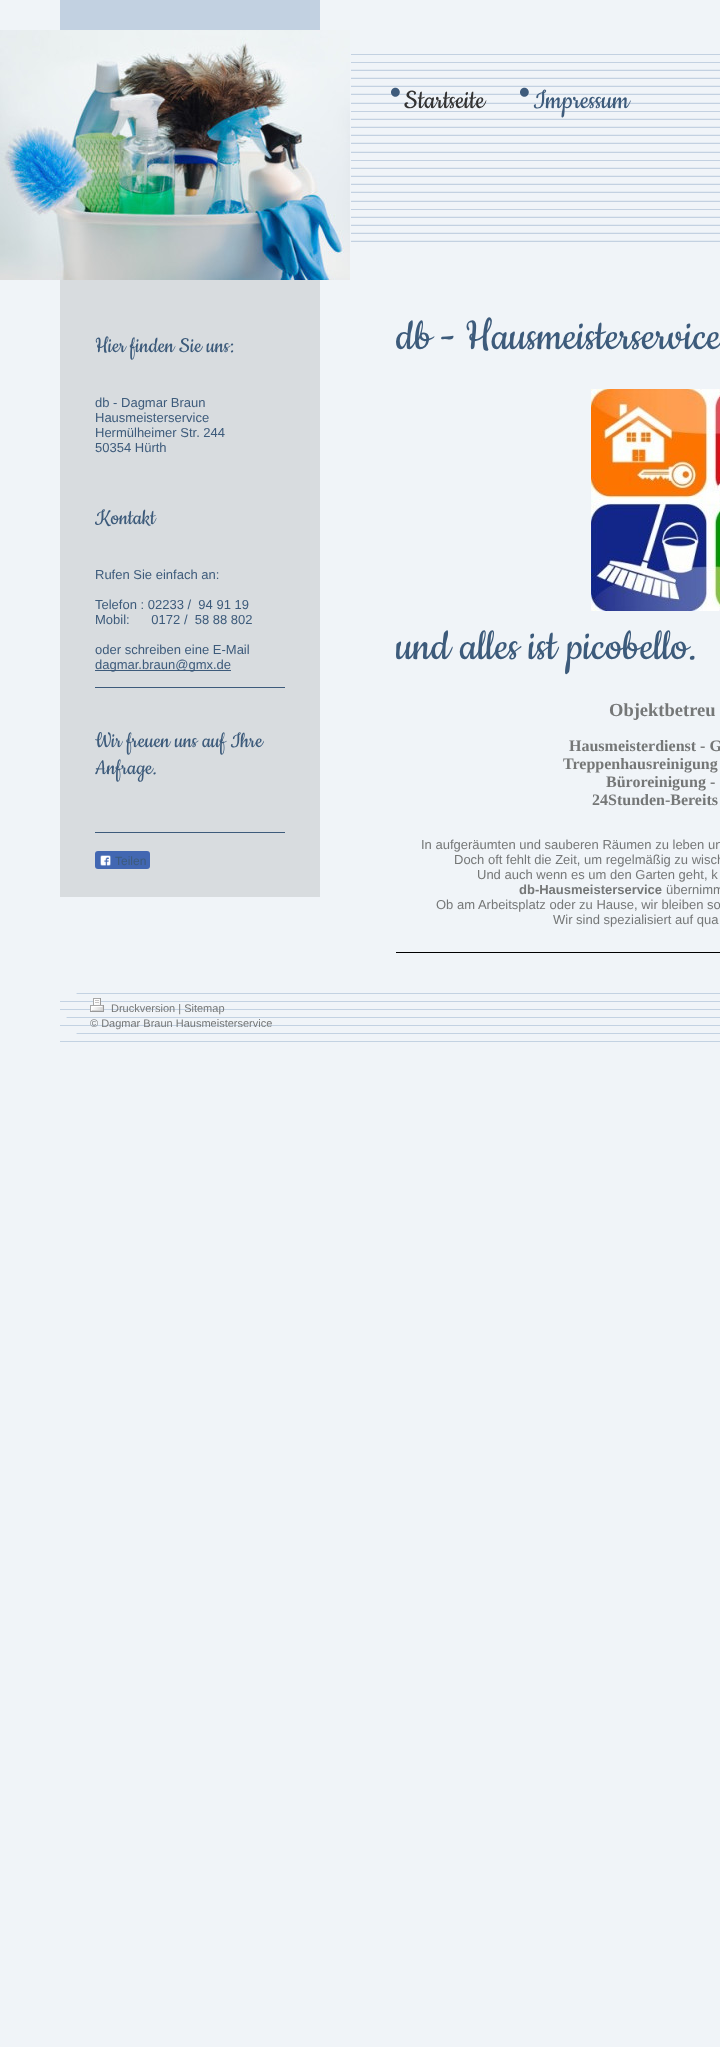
<svg xmlns="http://www.w3.org/2000/svg" width="720" height="2047" viewBox="0 0 720 2047">
  <rect width="100%" height="100%" fill="#f0f4f8"/>
  <path d="M60 0h260v30H60z" fill="#c2d1e1"/>
  <image x="0" y="30" width="350" height="250" href="img/1.png"/>
  <path d="M60 280h260v617H60z" fill="#d8dcdf"/>
  <path d="M95 670h136v1H95z" fill="#3d5b7b"/>
  <path d="M95 687h190v1H95z" fill="#3d5b7b"/>
  <path d="M95 832h190v1H95z" fill="#3d5b7b"/>
  <rect x="95" y="851" width="55" height="18" rx="3" fill="#4267b2"/>
  <image x="100" y="855" width="11" height="11" href="img/2.png"/>
  <image x="351" y="54" width="369" height="188" href="img/3.png"/>
  <image x="391" y="87" width="9" height="10" href="img/4.png"/>
  <image x="520" y="87" width="9" height="10" href="img/4.png"/>
  <image x="591" y="389" width="129" height="222" href="img/5.png"/>
  <path d="M396 952h324v1H396z" fill="#000"/>
  <image x="60" y="993" width="660" height="49" href="img/6.png"/>
  <image x="90" y="998" width="14" height="14" href="img/7.png"/>
  <text x="95" y="352" font-family="Cookie" font-size="24" fill="#3d5b7b">Hier finden Sie uns:</text>
  <g font-family="Liberation Sans" font-size="13" fill="#3d5b7b">
    <text x="95" y="407">db - Dagmar Braun</text>
    <text x="95" y="422">Hausmeisterservice</text>
    <text x="95" y="437">Hermülheimer Str. 244</text>
    <text x="95" y="452">50354 Hürth</text>
  </g>
  <text x="95" y="524" font-family="Cookie" font-size="24" fill="#3d5b7b">Kontakt</text>
  <g font-family="Liberation Sans" font-size="13" fill="#3d5b7b">
    <text x="95" y="579">Rufen Sie einfach an:</text>
    <text x="95" y="609" xml:space="preserve">Telefon : 02233 /  94 91 19</text>
    <text x="95" y="624" xml:space="preserve">Mobil:      0172 /  58 88 802</text>
    <text x="95" y="654">oder schreiben eine E-Mail</text>
    <text x="95" y="669">dagmar.braun@gmx.de</text>
  </g>
  <g font-family="Cookie" font-size="24" fill="#3d5b7b">
    <text x="95" y="747">Wir freuen uns auf Ihre</text>
    <text x="95" y="774">Anfrage.</text>
  </g>
  <text x="115" y="865" font-family="Liberation Sans" font-size="12" fill="#3d5b7b">Teilen</text>
  <text x="404" y="108" font-family="Cookie" font-size="30" fill="#333">Startseite</text>
  <text x="533" y="108" font-family="Cookie" font-size="30" fill="#3d5b7b">Impressum</text>
  <g font-family="Cookie" font-size="48" fill="#3d5b7b">
    <text x="396" y="349">db - Hausmeisterservice</text>
    <text x="396" y="659">und alles ist picobello.</text>
  </g>
  <text x="609" y="716" font-family="Liberation Serif" font-size="18.5" font-weight="bold" fill="#757777">Objektbetreu</text>
  <g font-family="Liberation Serif" font-size="16" font-weight="bold" fill="#757777">
    <text x="569" y="751">Hausmeisterdienst - G</text>
    <text x="563" y="769">Treppenhausreinigung</text>
    <text x="606" y="787">Büroreinigung -</text>
    <text x="592" y="805">24Stunden-Bereits</text>
  </g>
  <g font-family="Liberation Sans" font-size="13" fill="#757777">
    <text x="421" y="849">In aufgeräumten und sauberen Räumen zu leben un</text>
    <text x="454" y="864">Doch oft fehlt die Zeit, um regelmäßig zu wisch</text>
    <text x="477" y="879">Und auch wenn es um den Garten geht, k</text>
  </g>
  <text x="519" y="894" font-family="Liberation Sans" font-size="13" font-weight="bold" fill="#757777">db-Hausmeisterservice</text>
  <g font-family="Liberation Sans" font-size="13" fill="#757777">
    <text x="666" y="894">übernimm</text>
    <text x="436" y="909">Ob am Arbeitsplatz oder zu Hause, wir bleiben so</text>
    <text x="553" y="924">Wir sind spezialisiert auf qua</text>
  </g>
  <g font-family="Liberation Sans" font-size="11" fill="#757777">
    <text x="111" y="1012">Druckversion | Sitemap</text>
    <text x="90" y="1027">© Dagmar Braun Hausmeisterservice</text>
  </g>
</svg>
